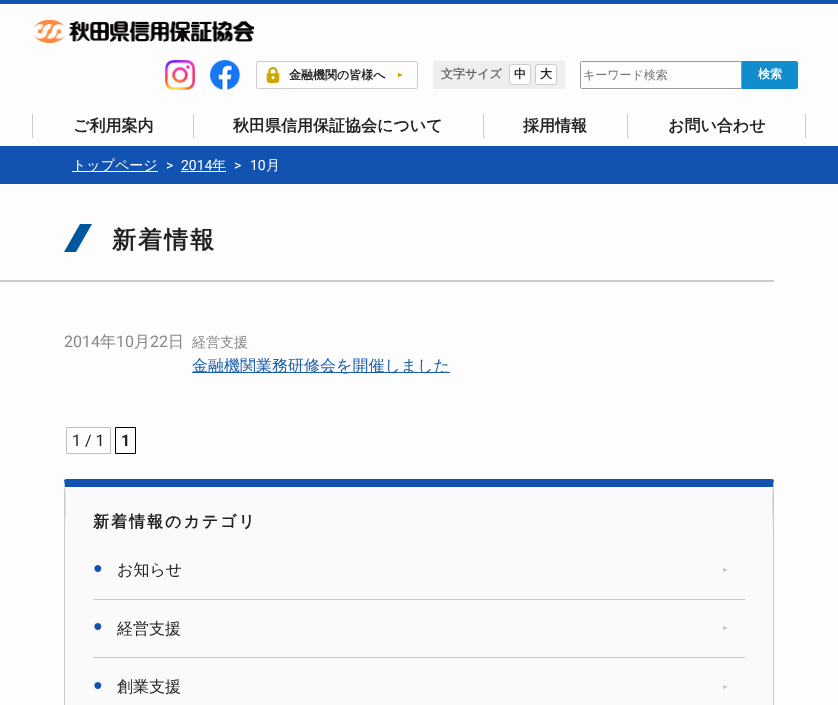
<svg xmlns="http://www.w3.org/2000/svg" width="838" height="705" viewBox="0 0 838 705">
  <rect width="100%" height="100%" fill="#fdfdfd"/>
  <path d="M0 0h838v4H0z" fill="#1252b1"/>
  <image x="33" y="20" width="222" height="23" href="img/1.png"/>
  <image x="165" y="60" width="30" height="30" href="img/2.png"/>
  <image x="210" y="60" width="30" height="30" href="img/3.png"/>
  <rect x="256.5" y="61.5" width="161" height="27" rx="1.5" fill="none" stroke="#ccc"/>
  <image x="266" y="67" width="14" height="16" href="img/4.png"/>
  <path d="M433 61h132v28H433z" fill="#eee"/>
  <rect x="509.5" y="64.5" width="21" height="20" rx="2.5" fill="#fff" stroke="#ccc"/>
  <rect x="535.5" y="64.5" width="21" height="20" rx="2.5" fill="#fff" stroke="#ccc"/>
  <path d="M582 61.5H741.5V88.5H582C581 88.5 580.5 88 580.5 87V63C580.5 62 581 61.5 582 61.5Z" fill="none" stroke="#999"/>
  <path d="M742 61H796C797 61 798 62 798 63V87C798 88 797 89 796 89H742Z" fill="#0f8dcc"/>
  <path d="M32 114h1v24H32z" fill="#ccc"/>
  <path d="M193 114h1v24H193z" fill="#ccc"/>
  <path d="M483 114h1v24H483z" fill="#ccc"/>
  <path d="M805 114h1v24H805z" fill="#ccc"/>
  <path d="M627 114h1v24H627z" fill="#ccc"/>
  <path d="M0 146h838v38H0z" fill="#1252b1"/>
  <path d="M72 171h86v1H72z" fill="#fff"/>
  <path d="M181 171h45v1H181z" fill="#fff"/>
  <path d="M80 224H92L76 252H64Z" fill="#01579b"/>
  <path d="M0 280h774v2H0z" fill="#ccc"/>
  <path d="M192 372h258v1H192z" fill="#1b5eab"/>
  <path d="M66.5 427.5h44v26H66.5z" fill="none" stroke="#bfbfbf"/>
  <path d="M115.5 427.5h20v26H115.5z" fill="none" stroke="#000"/>
  <path d="M66 487H773V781C773 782 773 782 772 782H66C65 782 65 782 65 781V487Z" fill="#fafafa"/>
  <path d="M66 479L64 480L65 487H773L774 480L772 479Z" fill="#1252b1"/>
  <path d="M774 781V480C771 499 773 512 773 536V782Z" fill="#ccc"/>
  <path d="M64 481V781L65 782V536C65 512 67 499 64 480Z" fill="#ccc"/>
  <path d="M93 599h652v1H93z" fill="#ccc"/>
  <path d="M93 657h652v1H93z" fill="#ccc"/>
  <text x="289" y="79" font-family="WenQuanYi Zen Hei" font-size="12" font-weight="bold" fill="#222">金融機関の皆様へ</text>
  <text x="398" y="71" transform="rotate(90 398 71)" font-family="Liberation Sans" font-size="8" font-weight="bold" fill="#cba700">▲</text>
  <text x="441" y="78" font-family="WenQuanYi Zen Hei" font-size="12" font-weight="bold" fill="#666">文字サイズ</text>
  <g font-family="WenQuanYi Zen Hei" font-size="12" font-weight="bold" fill="#222">
    <text x="514" y="78">中</text>
    <text x="540" y="78">大</text>
  </g>
  <text x="583" y="79" font-family="WenQuanYi Zen Hei" font-size="12" font-weight="500" fill="#757575">キーワード検索</text>
  <text x="758" y="78" font-family="WenQuanYi Zen Hei" font-size="12" font-weight="bold" fill="#fff">検索</text>
  <g font-family="WenQuanYi Zen Hei" font-size="16" font-weight="bold" fill="#222">
    <text x="73" y="131">ご利用案内</text>
    <text x="233" y="131">秋田県信用保証協会について</text>
    <text x="523" y="131">採用情報</text>
    <text x="668" y="131">お問い合わせ</text>
  </g>
  <text x="72" y="170" font-family="WenQuanYi Zen Hei" font-size="14" font-weight="500" fill="#fff">トップページ</text>
  <g font-family="Roboto" font-size="14" fill="#fff">
    <text x="166" y="170">&gt;</text>
    <text x="181" y="170">2014</text>
  </g>
  <text x="212" y="170" font-family="WenQuanYi Zen Hei" font-size="14" font-weight="500" fill="#fff">年</text>
  <g font-family="Roboto" font-size="14" fill="#fff">
    <text x="234" y="170">&gt;</text>
    <text x="250" y="170">10</text>
  </g>
  <text x="266" y="170" font-family="WenQuanYi Zen Hei" font-size="14" font-weight="500" fill="#fff">月</text>
  <text x="112" y="248" font-family="WenQuanYi Zen Hei" font-size="24" font-weight="bold" letter-spacing="2" fill="#222">新着情報</text>
  <text x="64" y="347" font-family="Roboto" font-size="16" fill="#888">2014</text>
  <text x="100" y="347" font-family="WenQuanYi Zen Hei" font-size="16" font-weight="500" fill="#888">年</text>
  <text x="116" y="347" font-family="Roboto" font-size="16" fill="#888">10</text>
  <text x="134" y="347" font-family="WenQuanYi Zen Hei" font-size="16" font-weight="500" fill="#888">月</text>
  <text x="150" y="347" font-family="Roboto" font-size="16" fill="#888">22</text>
  <text x="168" y="347" font-family="WenQuanYi Zen Hei" font-size="16" font-weight="500" fill="#888">日</text>
  <text x="192" y="347" font-family="WenQuanYi Zen Hei" font-size="14" font-weight="500" fill="#888">経営支援</text>
  <text x="192" y="371" font-family="WenQuanYi Zen Hei" font-size="16" font-weight="500" fill="#1b5eab">金融機関業務研修会を開催しました</text>
  <text x="72" y="446" font-family="Roboto" font-size="16" fill="#222">1 / 1</text>
  <text x="121" y="446" font-family="Roboto" font-size="16" font-weight="bold" fill="#222">1</text>
  <text x="93" y="527" font-family="WenQuanYi Zen Hei" font-size="16" font-weight="bold" letter-spacing="2" fill="#222">新着情報のカテゴリ</text>
  <text x="93" y="573" font-family="Liberation Sans" font-size="16" fill="#1252b1">●</text>
  <text x="117" y="575" font-family="WenQuanYi Zen Hei" font-size="16" font-weight="500" fill="#222">お知らせ</text>
  <text x="723" y="566" transform="rotate(90 723 566)" font-family="Liberation Sans" font-size="8" fill="#ccc">▲</text>
  <text x="93" y="631" font-family="Liberation Sans" font-size="16" fill="#1252b1">●</text>
  <text x="117" y="634" font-family="WenQuanYi Zen Hei" font-size="16" font-weight="500" fill="#222">経営支援</text>
  <text x="723" y="624" transform="rotate(90 723 624)" font-family="Liberation Sans" font-size="8" fill="#ccc">▲</text>
  <text x="93" y="690" font-family="Liberation Sans" font-size="16" fill="#1252b1">●</text>
  <text x="117" y="692" font-family="WenQuanYi Zen Hei" font-size="16" font-weight="500" fill="#222">創業支援</text>
  <text x="723" y="683" transform="rotate(90 723 683)" font-family="Liberation Sans" font-size="8" fill="#ccc">▲</text>
</svg>
